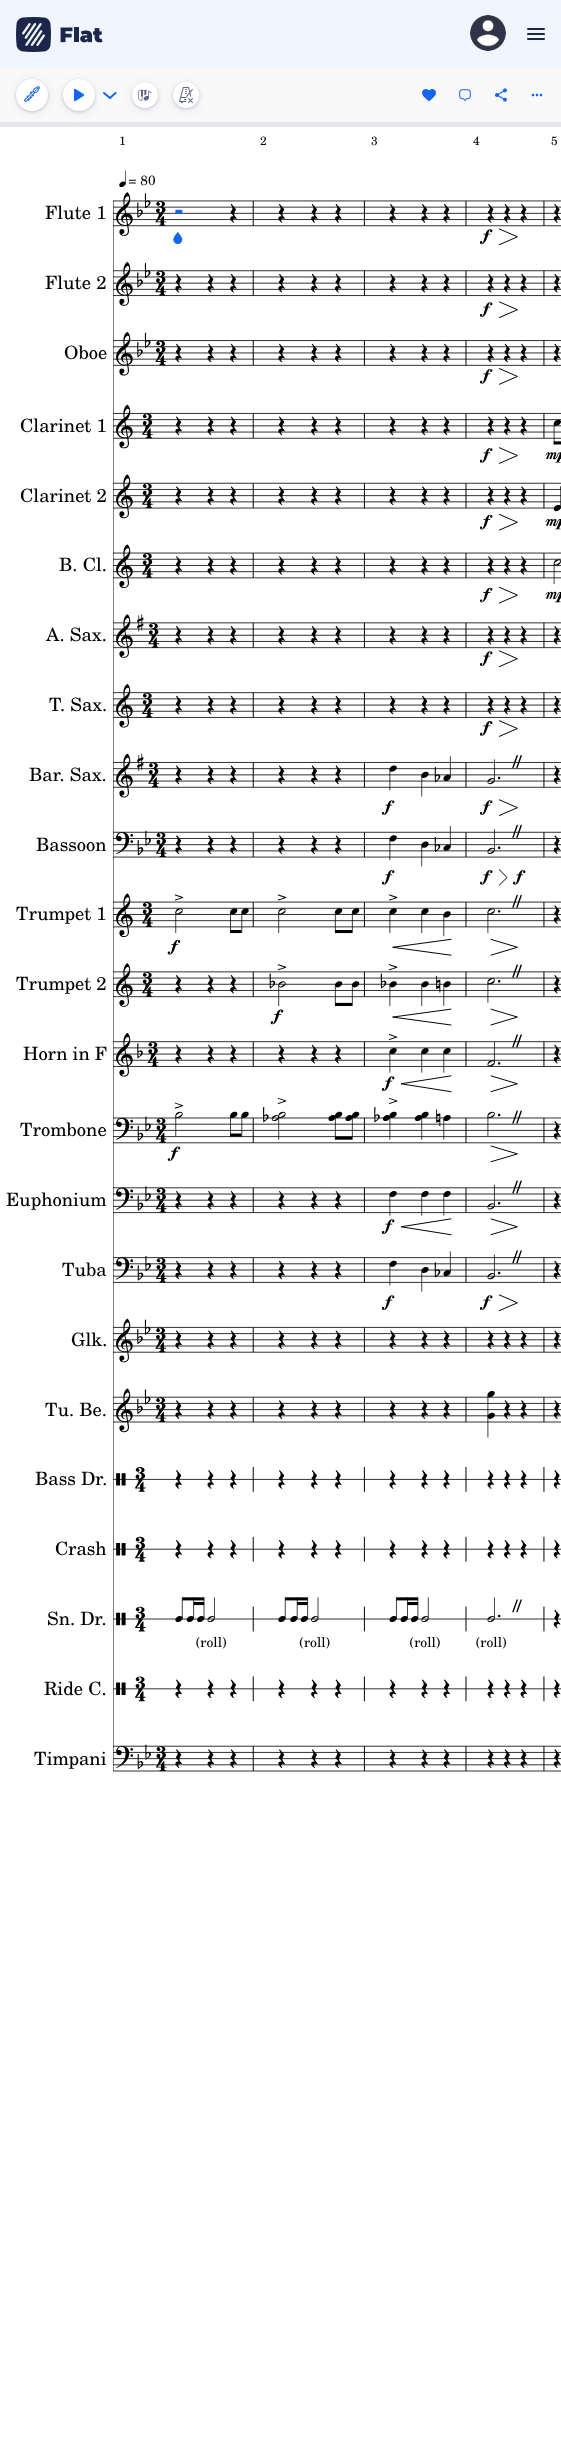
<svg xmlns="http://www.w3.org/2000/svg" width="561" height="2443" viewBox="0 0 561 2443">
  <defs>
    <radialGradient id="g1" gradientUnits="userSpaceOnUse" cx="0" cy="0" r="1" gradientTransform="matrix(11 0 0 1148 113 1300)"><stop offset="0" stop-color="#919191"/><stop offset="1" stop-color="#fff"/></radialGradient>
    <linearGradient id="g2" gradientUnits="userSpaceOnUse" x1="113" y1="1300" x2="561" y2="1300"><stop offset="0" stop-color="#fff"/><stop offset="0.02" stop-color="#fff"/><stop offset="0.05" stop-color="#fff" stop-opacity="0.5"/></linearGradient>
  </defs>
  <rect width="100%" height="100%" fill="#fff"/>
  <path d="M0 0h561v68H0z" fill="#f1f6fe"/>
  <image x="16" y="17" width="87" height="35" href="img/1.png"/>
  <circle cx="488" cy="33" r="18" fill="#fff"/>
  <image x="470" y="15" width="36" height="36" href="img/2.png"/>
  <rect x="527" y="28" width="18" height="2" rx="1" fill="#1c264a"/>
  <rect x="527" y="33" width="18" height="2" rx="1" fill="#1c264a"/>
  <rect x="527" y="38" width="18" height="2" rx="1" fill="#1c264a"/>
  <path d="M0 68h561v54H0z" fill="#f9f9fa"/>
  <rect x="63" y="81" width="32" height="32" rx="16" fill="#28304f1a" filter="blur(4px)"/>
  <rect x="132" y="84" width="26" height="26" rx="13" fill="#28304f1a" filter="blur(4px)"/>
  <rect x="173" y="84" width="26" height="26" rx="13" fill="#28304f1a" filter="blur(4px)"/>
  <path d="M0 122h561v5H0z" fill="#e7e8ec"/>
  <rect x="16" y="80" width="32" height="32" rx="16" fill="#28304f1a" filter="blur(4px)"/>
  <rect x="16" y="80" width="32" height="32" rx="16" fill="#28304f33" filter="blur(1.5px)"/>
  <circle cx="32" cy="95" r="16" fill="#fff"/>
  <image x="24" y="86" width="16" height="16" href="img/3.png"/>
  <rect x="63" y="80" width="32" height="32" rx="16" fill="#28304f33" filter="blur(1.5px)"/>
  <circle cx="79" cy="95" r="16" fill="#fff"/>
  <image x="74" y="88" width="11" height="14" href="img/4.png"/>
  <path d="M104 93L110 98L115.5 93" fill="none" stroke="#1565ef" stroke-width="2" stroke-linecap="round" stroke-linejoin="round"/>
  <rect x="132" y="83" width="26" height="26" rx="13" fill="#28304f33" filter="blur(1.5px)"/>
  <circle cx="145" cy="95" r="13" fill="#fff"/>
  <image x="138" y="89" width="14" height="12" href="img/5.png"/>
  <rect x="173" y="83" width="26" height="26" rx="13" fill="#28304f33" filter="blur(1.5px)"/>
  <circle cx="186" cy="95" r="13" fill="#fff"/>
  <image x="179" y="87" width="14" height="16" href="img/6.png"/>
  <image x="422" y="89" width="14" height="12" href="img/7.png"/>
  <image x="459" y="89" width="12" height="12" href="img/8.png"/>
  <image x="495" y="88" width="12" height="14" href="img/9.png"/>
  <image x="531" y="93" width="12" height="4" href="img/10.png"/>
  <path d="M122 774h2v1052H122z" fill="url(#g1)"/>
  <path d="M122 774h2v1052H122z" fill="url(#g2)"/>
  <image x="113" y="170" width="448" height="1602" href="img/11.png"/>
  <g font-family="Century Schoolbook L" font-size="12" fill="#000">
    <text x="119" y="145">1</text>
    <text x="260" y="145">2</text>
    <text x="371" y="145">3</text>
    <text x="473" y="145">4</text>
    <text x="551" y="145">5</text>
  </g>
  <g font-family="Century Schoolbook L" font-size="18.5" fill="#000">
    <text x="45" y="219">Flute 1</text>
    <text x="45" y="289">Flute 2</text>
    <text x="64" y="359">Oboe</text>
    <text x="20" y="432">Clarinet 1</text>
    <text x="20" y="502">Clarinet 2</text>
    <text x="59" y="571">B. Cl.</text>
    <text x="46" y="641">A. Sax.</text>
    <text x="49" y="711">T. Sax.</text>
    <text x="29" y="781">Bar. Sax.</text>
    <text x="36" y="851">Bassoon</text>
    <text x="16" y="920">Trumpet 1</text>
    <text x="16" y="990">Trumpet 2</text>
    <text x="23" y="1060">Horn in F</text>
    <text x="20" y="1136">Trombone</text>
    <text x="6" y="1206">Euphonium</text>
    <text x="62" y="1276">Tuba</text>
    <text x="71" y="1346">Glk.</text>
    <text x="45" y="1416">Tu. Be.</text>
    <text x="35" y="1485">Bass Dr.</text>
    <text x="55" y="1555">Crash</text>
    <text x="47" y="1625">Sn. Dr.</text>
    <text x="44" y="1695">Ride C.</text>
    <text x="34" y="1765">Timpani</text>
  </g>
</svg>
